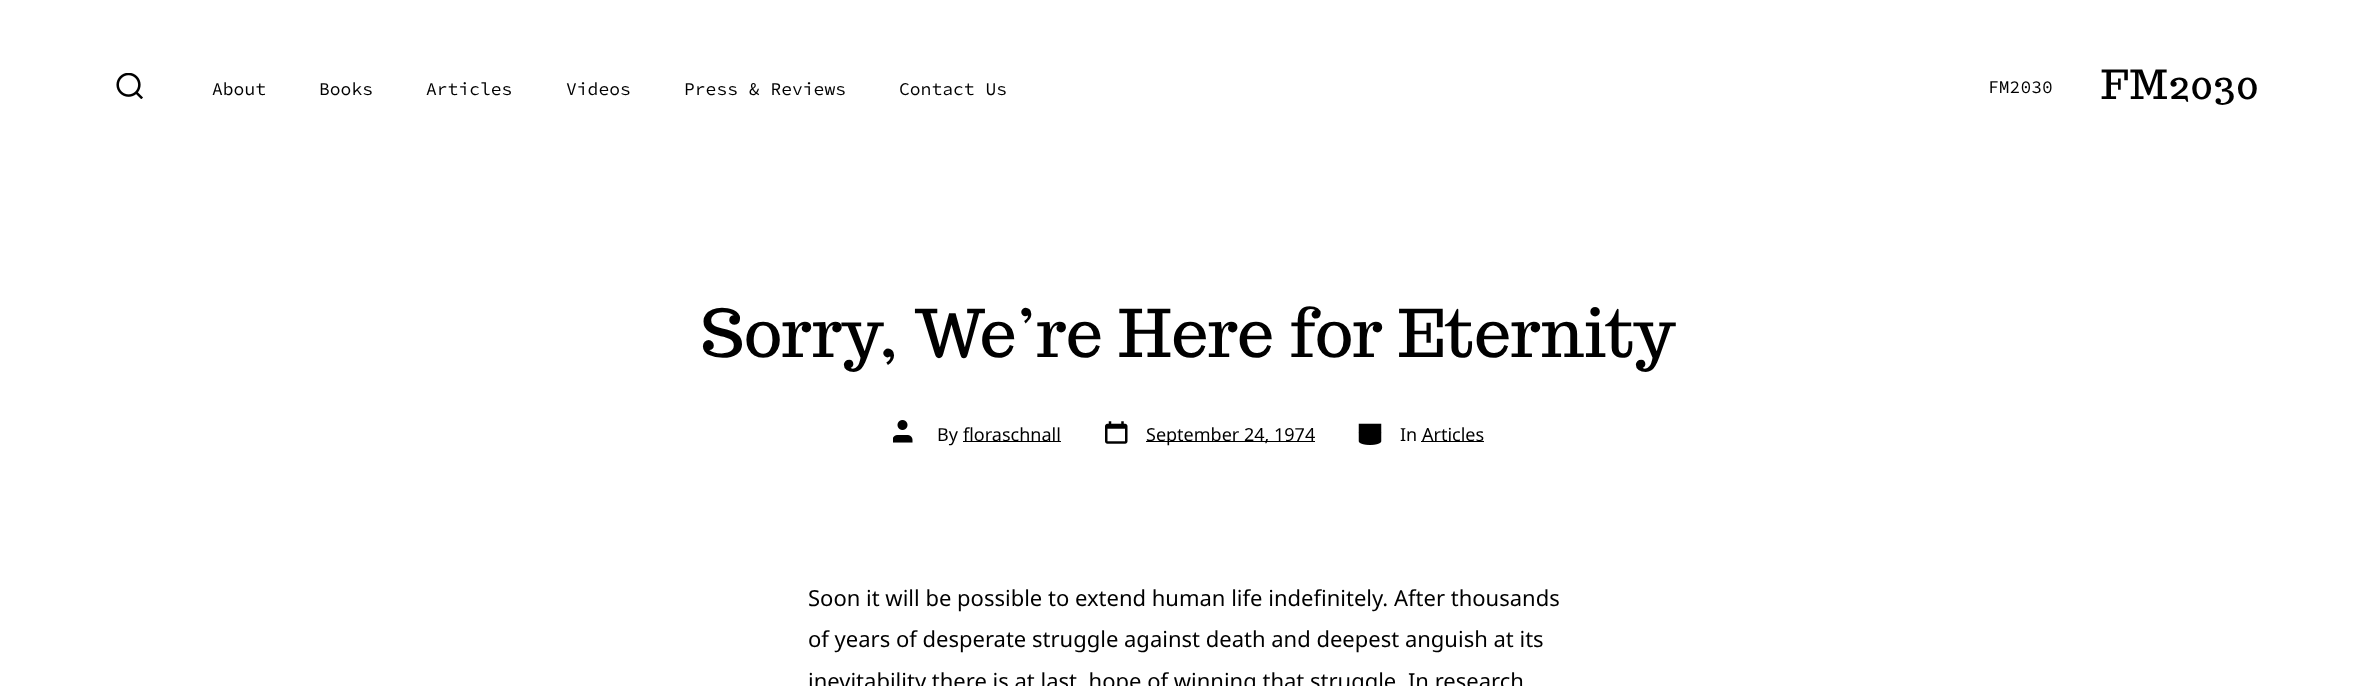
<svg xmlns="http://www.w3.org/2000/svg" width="2376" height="686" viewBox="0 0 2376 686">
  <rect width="100%" height="100%" fill="#fff"/>
  <image x="116" y="73" width="27" height="26" href="img/1.png"/>
  <image x="893" y="420" width="20" height="23" href="img/2.png"/>
  <path d="M963 441h98v1H963z" fill="#000"/>
  <image x="1105" y="421" width="23" height="23" href="img/3.png"/>
  <path d="M1146 441h169v1H1146z" fill="#000"/>
  <image x="1358" y="423" width="24" height="22" href="img/4.png"/>
  <path d="M1421 441h63v1H1421z" fill="#000"/>
  <g font-family="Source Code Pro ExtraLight" font-size="18" fill="#000">
    <text x="212" y="95">About</text>
    <text x="319" y="95">Books</text>
    <text x="426" y="95">Articles</text>
    <text x="566" y="95">Videos</text>
    <text x="684" y="95">Press &amp; Reviews</text>
    <text x="899" y="95">Contact Us</text>
    <text x="1988" y="93">FM2030</text>
  </g>
  <text x="2101" y="99" font-family="Trocchi" font-size="40" letter-spacing="1.25" fill="#000">FM2030</text>
  <text x="701" y="357" font-family="Trocchi" font-size="65.75" fill="#000">Sorry, We’re Here for Eternity</text>
  <g font-family="Noto Sans" font-size="18" fill="#000">
    <text x="937" y="441">By</text>
    <text x="963" y="441">floraschnall</text>
    <text x="1146" y="441">September 24, 1974</text>
    <text x="1400" y="441">In</text>
    <text x="1422" y="441">Articles</text>
  </g>
  <g font-family="Noto Sans" font-size="22" fill="#000">
    <text x="808" y="606">Soon it will be possible to extend human life indefinitely. After thousands</text>
    <text x="808" y="647">of years of desperate struggle against death and deepest anguish at its</text>
    <text x="808" y="689">inevitability there is at last .hope of winning that struggle. In research</text>
  </g>
</svg>
